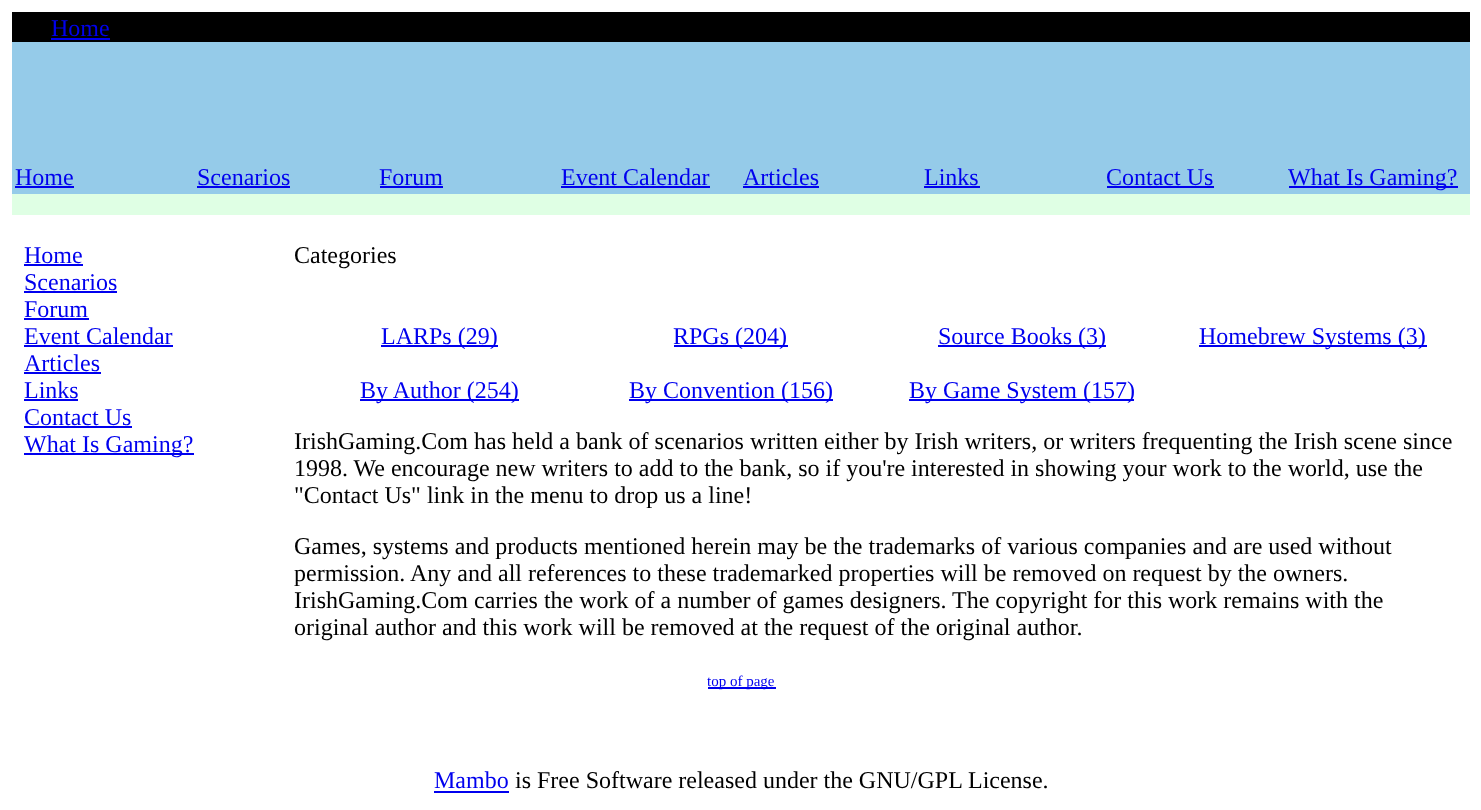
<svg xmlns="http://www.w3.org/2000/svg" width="1481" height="810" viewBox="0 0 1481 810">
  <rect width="100%" height="100%" fill="#fff"/>
  <path d="M12 12h1458v30H12z" fill="#000"/>
  <path d="M51 38h59v2H51z" fill="#00e"/>
  <path d="M12 42h1458v152H12z" fill="#95cbe9"/>
  <path d="M15 186h59v2H15z" fill="#00e"/>
  <path d="M197 186h93v2H197z" fill="#00e"/>
  <path d="M380 186h63v2H380z" fill="#00e"/>
  <path d="M561 186h149v2H561z" fill="#00e"/>
  <path d="M743 186h76v2H743z" fill="#00e"/>
  <path d="M924 186h56v2H924z" fill="#00e"/>
  <path d="M1107 186h107v2H1107z" fill="#00e"/>
  <path d="M1289 186h169v2H1289z" fill="#00e"/>
  <path d="M12 194h1458v21H12z" fill="#dfffe4"/>
  <path d="M24 264h59v2H24z" fill="#00e"/>
  <path d="M24 291h93v2H24z" fill="#00e"/>
  <path d="M24 318h65v2H24z" fill="#00e"/>
  <path d="M24 345h149v2H24z" fill="#00e"/>
  <path d="M24 372h77v2H24z" fill="#00e"/>
  <path d="M24 399h54v2H24z" fill="#00e"/>
  <path d="M24 426h108v2H24z" fill="#00e"/>
  <path d="M24 453h170v2H24z" fill="#00e"/>
  <path d="M381 345h117v2H381z" fill="#00e"/>
  <path d="M674 345h114v2H674z" fill="#00e"/>
  <path d="M938 345h168v2H938z" fill="#00e"/>
  <path d="M1199 345h228v2H1199z" fill="#00e"/>
  <path d="M360 399h159v2H360z" fill="#00e"/>
  <path d="M629 399h204v2H629z" fill="#00e"/>
  <path d="M909 399h225v2H909z" fill="#00e"/>
  <path d="M708 687h68v2H708z" fill="#00e"/>
  <path d="M434 791h75v2H434z" fill="#00e"/>
  <g font-family="Liberation Serif" font-size="24" fill="#00e">
    <text x="51" y="36">Home</text>
    <text x="15" y="185">Home</text>
    <text x="197" y="185">Scenarios</text>
    <text x="379" y="185">Forum</text>
    <text x="561" y="185">Event Calendar</text>
    <text x="743" y="185">Articles</text>
    <text x="924" y="185">Links</text>
    <text x="1106" y="185">Contact Us</text>
    <text x="1288" y="185">What Is Gaming?</text>
    <text x="24" y="263">Home</text>
    <text x="24" y="290">Scenarios</text>
    <text x="24" y="317">Forum</text>
    <text x="24" y="344">Event Calendar</text>
    <text x="24" y="371">Articles</text>
    <text x="24" y="398">Links</text>
    <text x="24" y="425">Contact Us</text>
    <text x="24" y="452">What Is Gaming?</text>
  </g>
  <text x="294" y="263" font-family="Liberation Serif" font-size="24" fill="#000">Categories</text>
  <g font-family="Liberation Serif" font-size="24" fill="#00e">
    <text x="381" y="344">LARPs (29)</text>
    <text x="673" y="344">RPGs (204)</text>
    <text x="938" y="344">Source Books (3)</text>
    <text x="1199" y="344">Homebrew Systems (3)</text>
    <text x="360" y="398">By Author (254)</text>
    <text x="629" y="398">By Convention (156)</text>
    <text x="909" y="398">By Game System (157)</text>
  </g>
  <g font-family="Liberation Serif" font-size="24" fill="#000">
    <text x="294" y="449">IrishGaming.Com has held a bank of scenarios written either by Irish writers, or writers frequenting the Irish scene since</text>
    <text x="294" y="476">1998. We encourage new writers to add to the bank, so if you're interested in showing your work to the world, use the</text>
    <text x="294" y="503">"Contact Us" link in the menu to drop us a line!</text>
    <text x="294" y="554">Games, systems and products mentioned herein may be the trademarks of various companies and are used without</text>
    <text x="294" y="581">permission.</text>
    <text x="410" y="581">Any and all references to these trademarked properties will be removed on request by the owners.</text>
    <text x="294" y="608">IrishGaming.Com carries the work of a number of games designers. The copyright for this work remains with the</text>
    <text x="294" y="635">original author and this work will be removed at the request of the original author.</text>
  </g>
  <text x="707" y="686" font-family="Liberation Serif" font-size="15" fill="#00e">top of page</text>
  <text x="434" y="788" font-family="Liberation Serif" font-size="24" fill="#00e">Mambo</text>
  <text x="515" y="788" font-family="Liberation Serif" font-size="24" fill="#000">is Free Software released under the GNU/GPL License.</text>
</svg>
